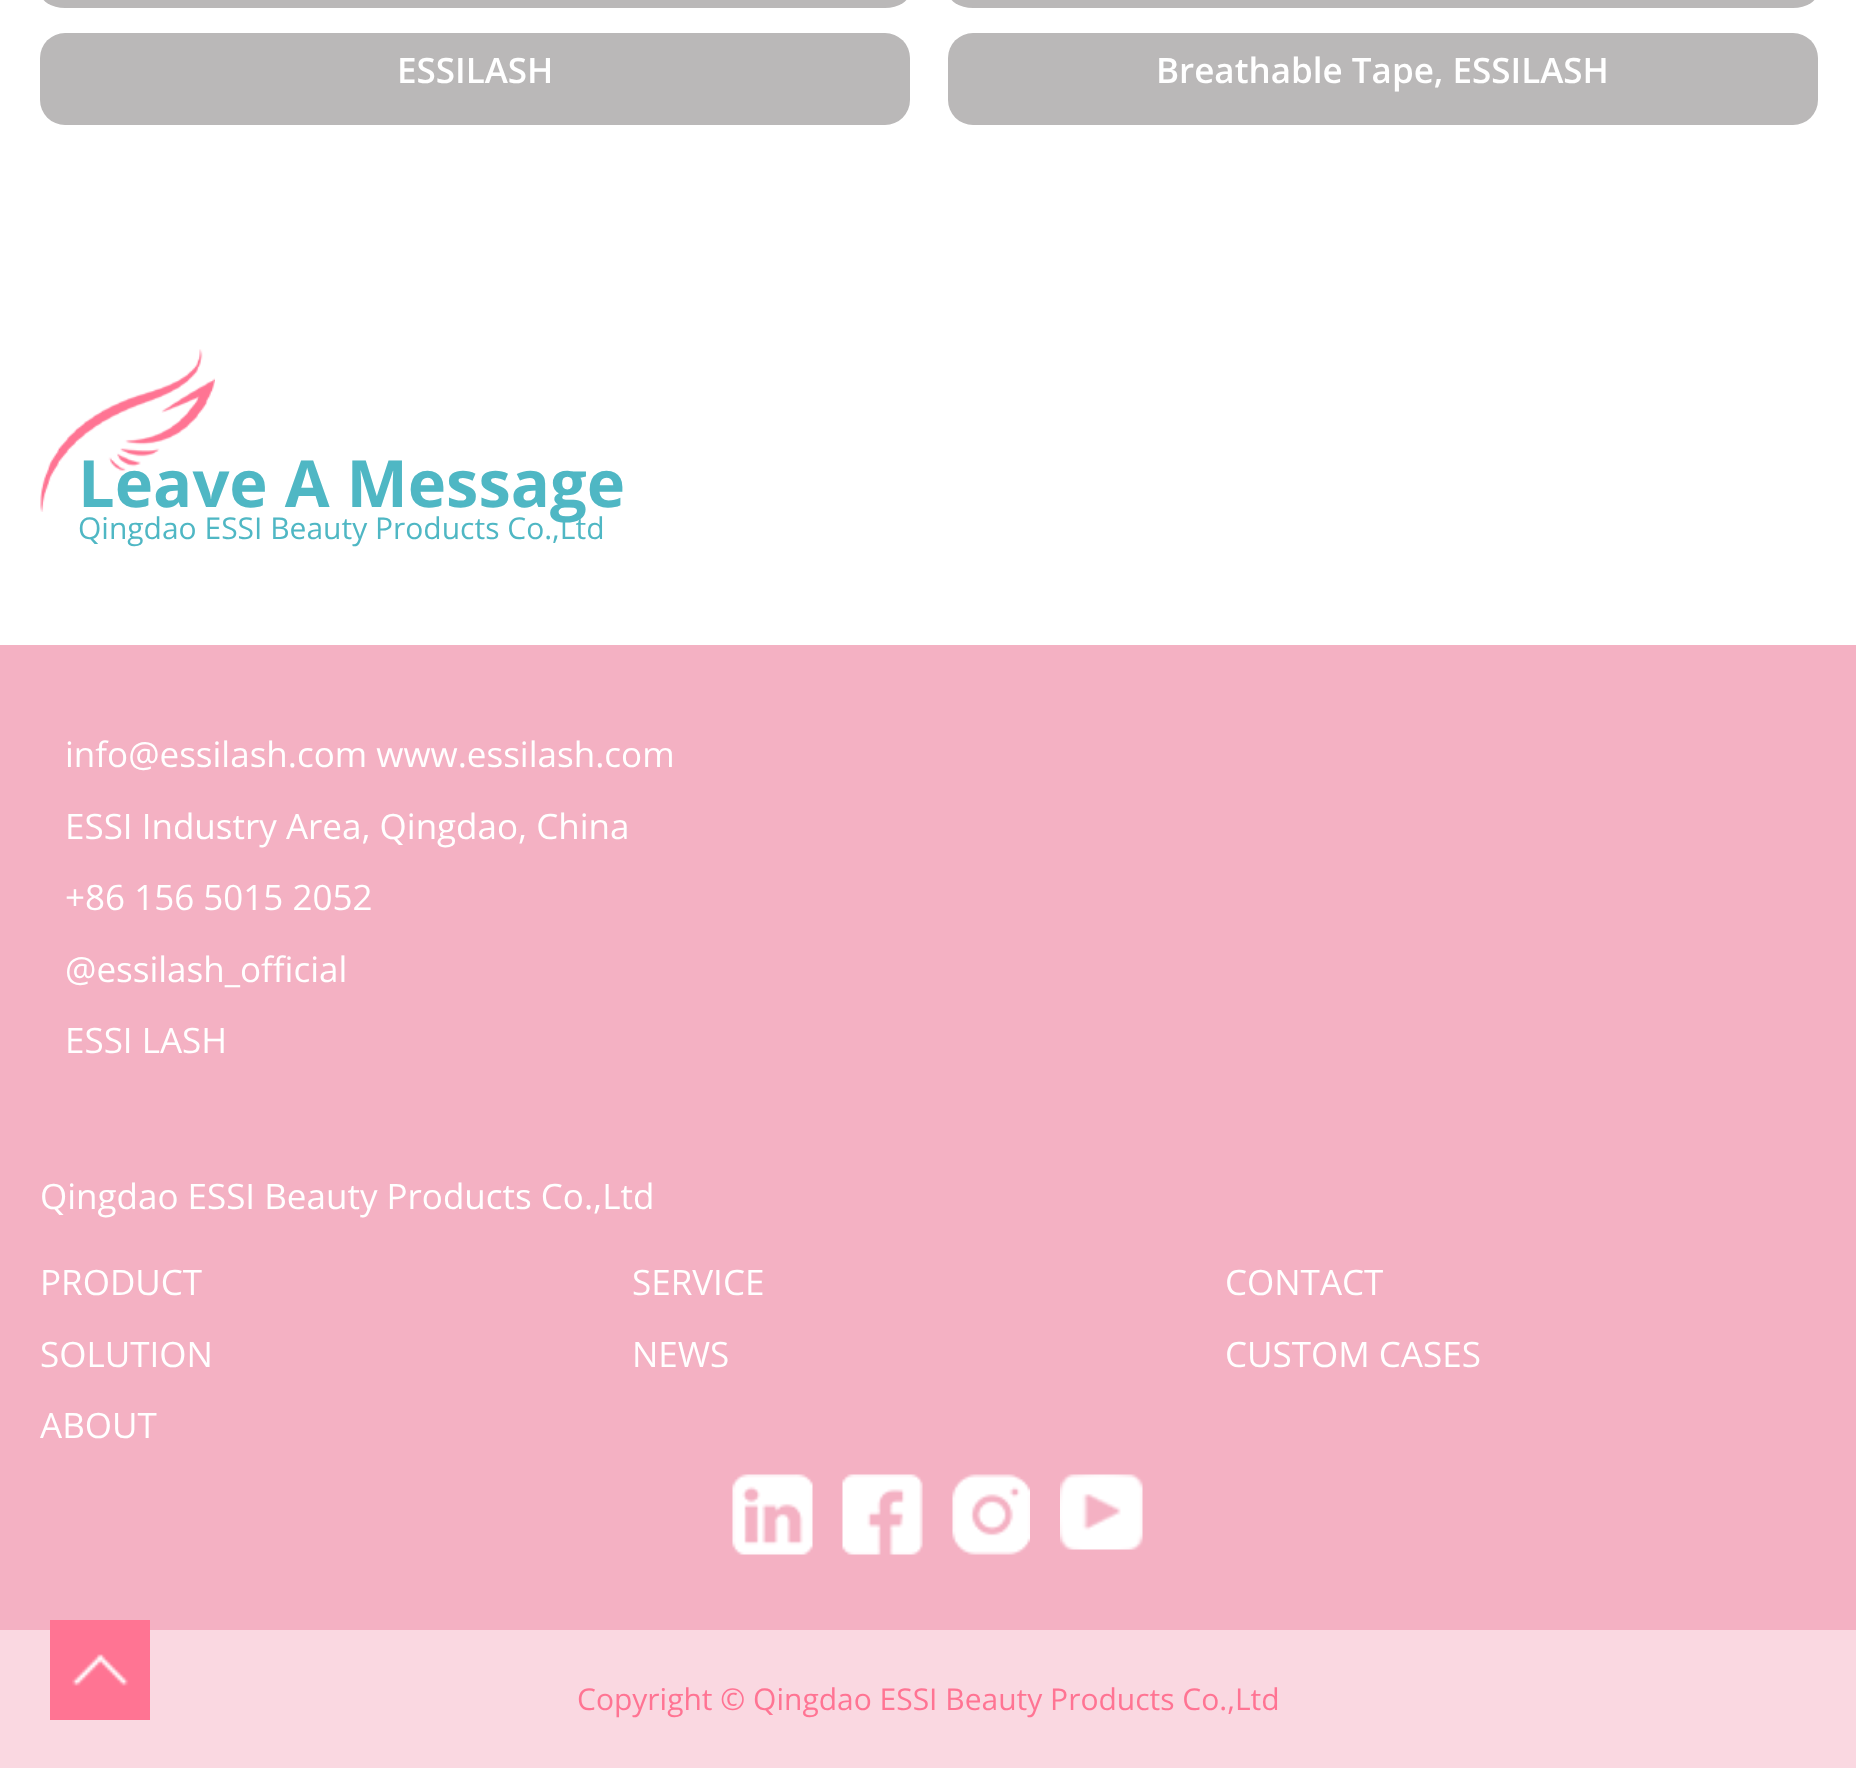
<svg xmlns="http://www.w3.org/2000/svg" width="1856" height="1768" viewBox="0 0 1856 1768">
  <rect width="100%" height="100%" fill="#fff"/>
  <rect x="40" y="-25" width="870" height="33" rx="25" fill="#bab8b8"/>
  <rect x="948" y="-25" width="870" height="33" rx="25" fill="#bab8b8"/>
  <rect x="40" y="33" width="870" height="92" rx="25" fill="#bab8b8"/>
  <rect x="948" y="33" width="870" height="92" rx="25" fill="#bab8b8"/>
  <image x="40" y="349" width="175" height="163" href="img/1.png"/>
  <path d="M0 645h1856v985H0z" fill="#f4b1c3"/>
  <image x="732" y="1474" width="81" height="81" href="img/2.png"/>
  <image x="842" y="1474" width="81" height="81" href="img/3.png"/>
  <image x="952" y="1474" width="78" height="81" href="img/4.png"/>
  <image x="1060" y="1474" width="83" height="76" href="img/5.png"/>
  <path d="M0 1630h1856v138H0z" fill="#fad8e1"/>
  <path d="M50 1620h100v100H50z" fill="#ff7493"/>
  <image x="72" y="1654" width="57" height="32" href="img/6.png"/>
  <g font-family="Open Sans" font-size="35" font-weight="600" fill="#fff">
    <text x="397" y="83">ESSILASH</text>
    <text x="1156" y="83">Breathable Tape, ESSILASH</text>
  </g>
  <text x="78" y="507" font-family="Open Sans" font-size="65" font-weight="bold" fill="#4fb7c4">Leave A Message</text>
  <text x="78" y="539" font-family="Open Sans" font-size="30" fill="#4fb7c4">Qingdao ESSI Beauty Products Co.,Ltd</text>
  <g font-family="Open Sans" font-size="35" fill="#fff">
    <text x="65" y="767">info@essilash.com www.essilash.com</text>
    <text x="65" y="839">ESSI Industry Area, Qingdao, China</text>
    <text x="65" y="910">+86 156 5015 2052</text>
    <text x="65" y="982">@essilash_official</text>
    <text x="65" y="1053">ESSI LASH</text>
    <text x="40" y="1209">Qingdao ESSI Beauty Products Co.,Ltd</text>
    <text x="40" y="1295">PRODUCT</text>
    <text x="632" y="1295">SERVICE</text>
    <text x="1225" y="1295">CONTACT</text>
    <text x="40" y="1367">SOLUTION</text>
    <text x="632" y="1367">NEWS</text>
    <text x="1225" y="1367">CUSTOM CASES</text>
    <text x="40" y="1438">ABOUT</text>
  </g>
  <text x="577" y="1710" font-family="Open Sans" font-size="30" fill="#ff7493">Copyright © Qingdao ESSI Beauty Products Co.,Ltd</text>
</svg>
